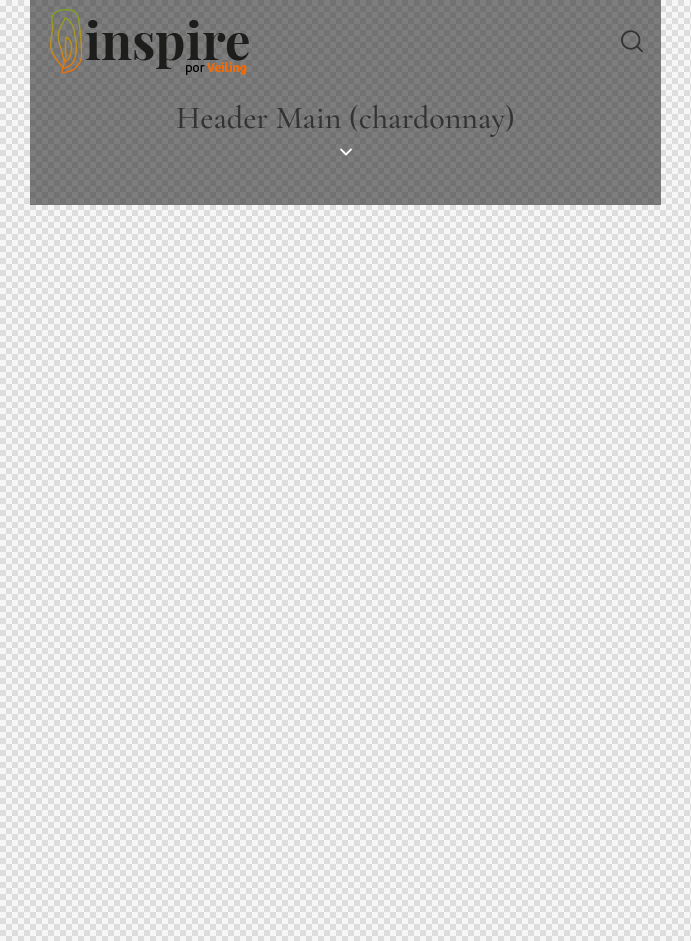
<svg xmlns="http://www.w3.org/2000/svg" width="691" height="941" viewBox="0 0 691 941">
  <rect width="100%" height="100%" fill="#fff"/>
  <image x="0" y="0" width="691" height="941" href="img/1.png"/>
  <path d="M30 0h631v205H30z" fill="#1a1a1a8c"/>
  <image x="50" y="9" width="199" height="66" href="img/2.png"/>
  <image x="621" y="30" width="22" height="23" href="img/3.png"/>
  <image x="340" y="148" width="12" height="8" href="img/4.png"/>
  <text x="176" y="128" font-family="Cormorant Garamond" font-size="32" font-weight="500" fill="#333">Header Main (chardonnay)</text>
</svg>
